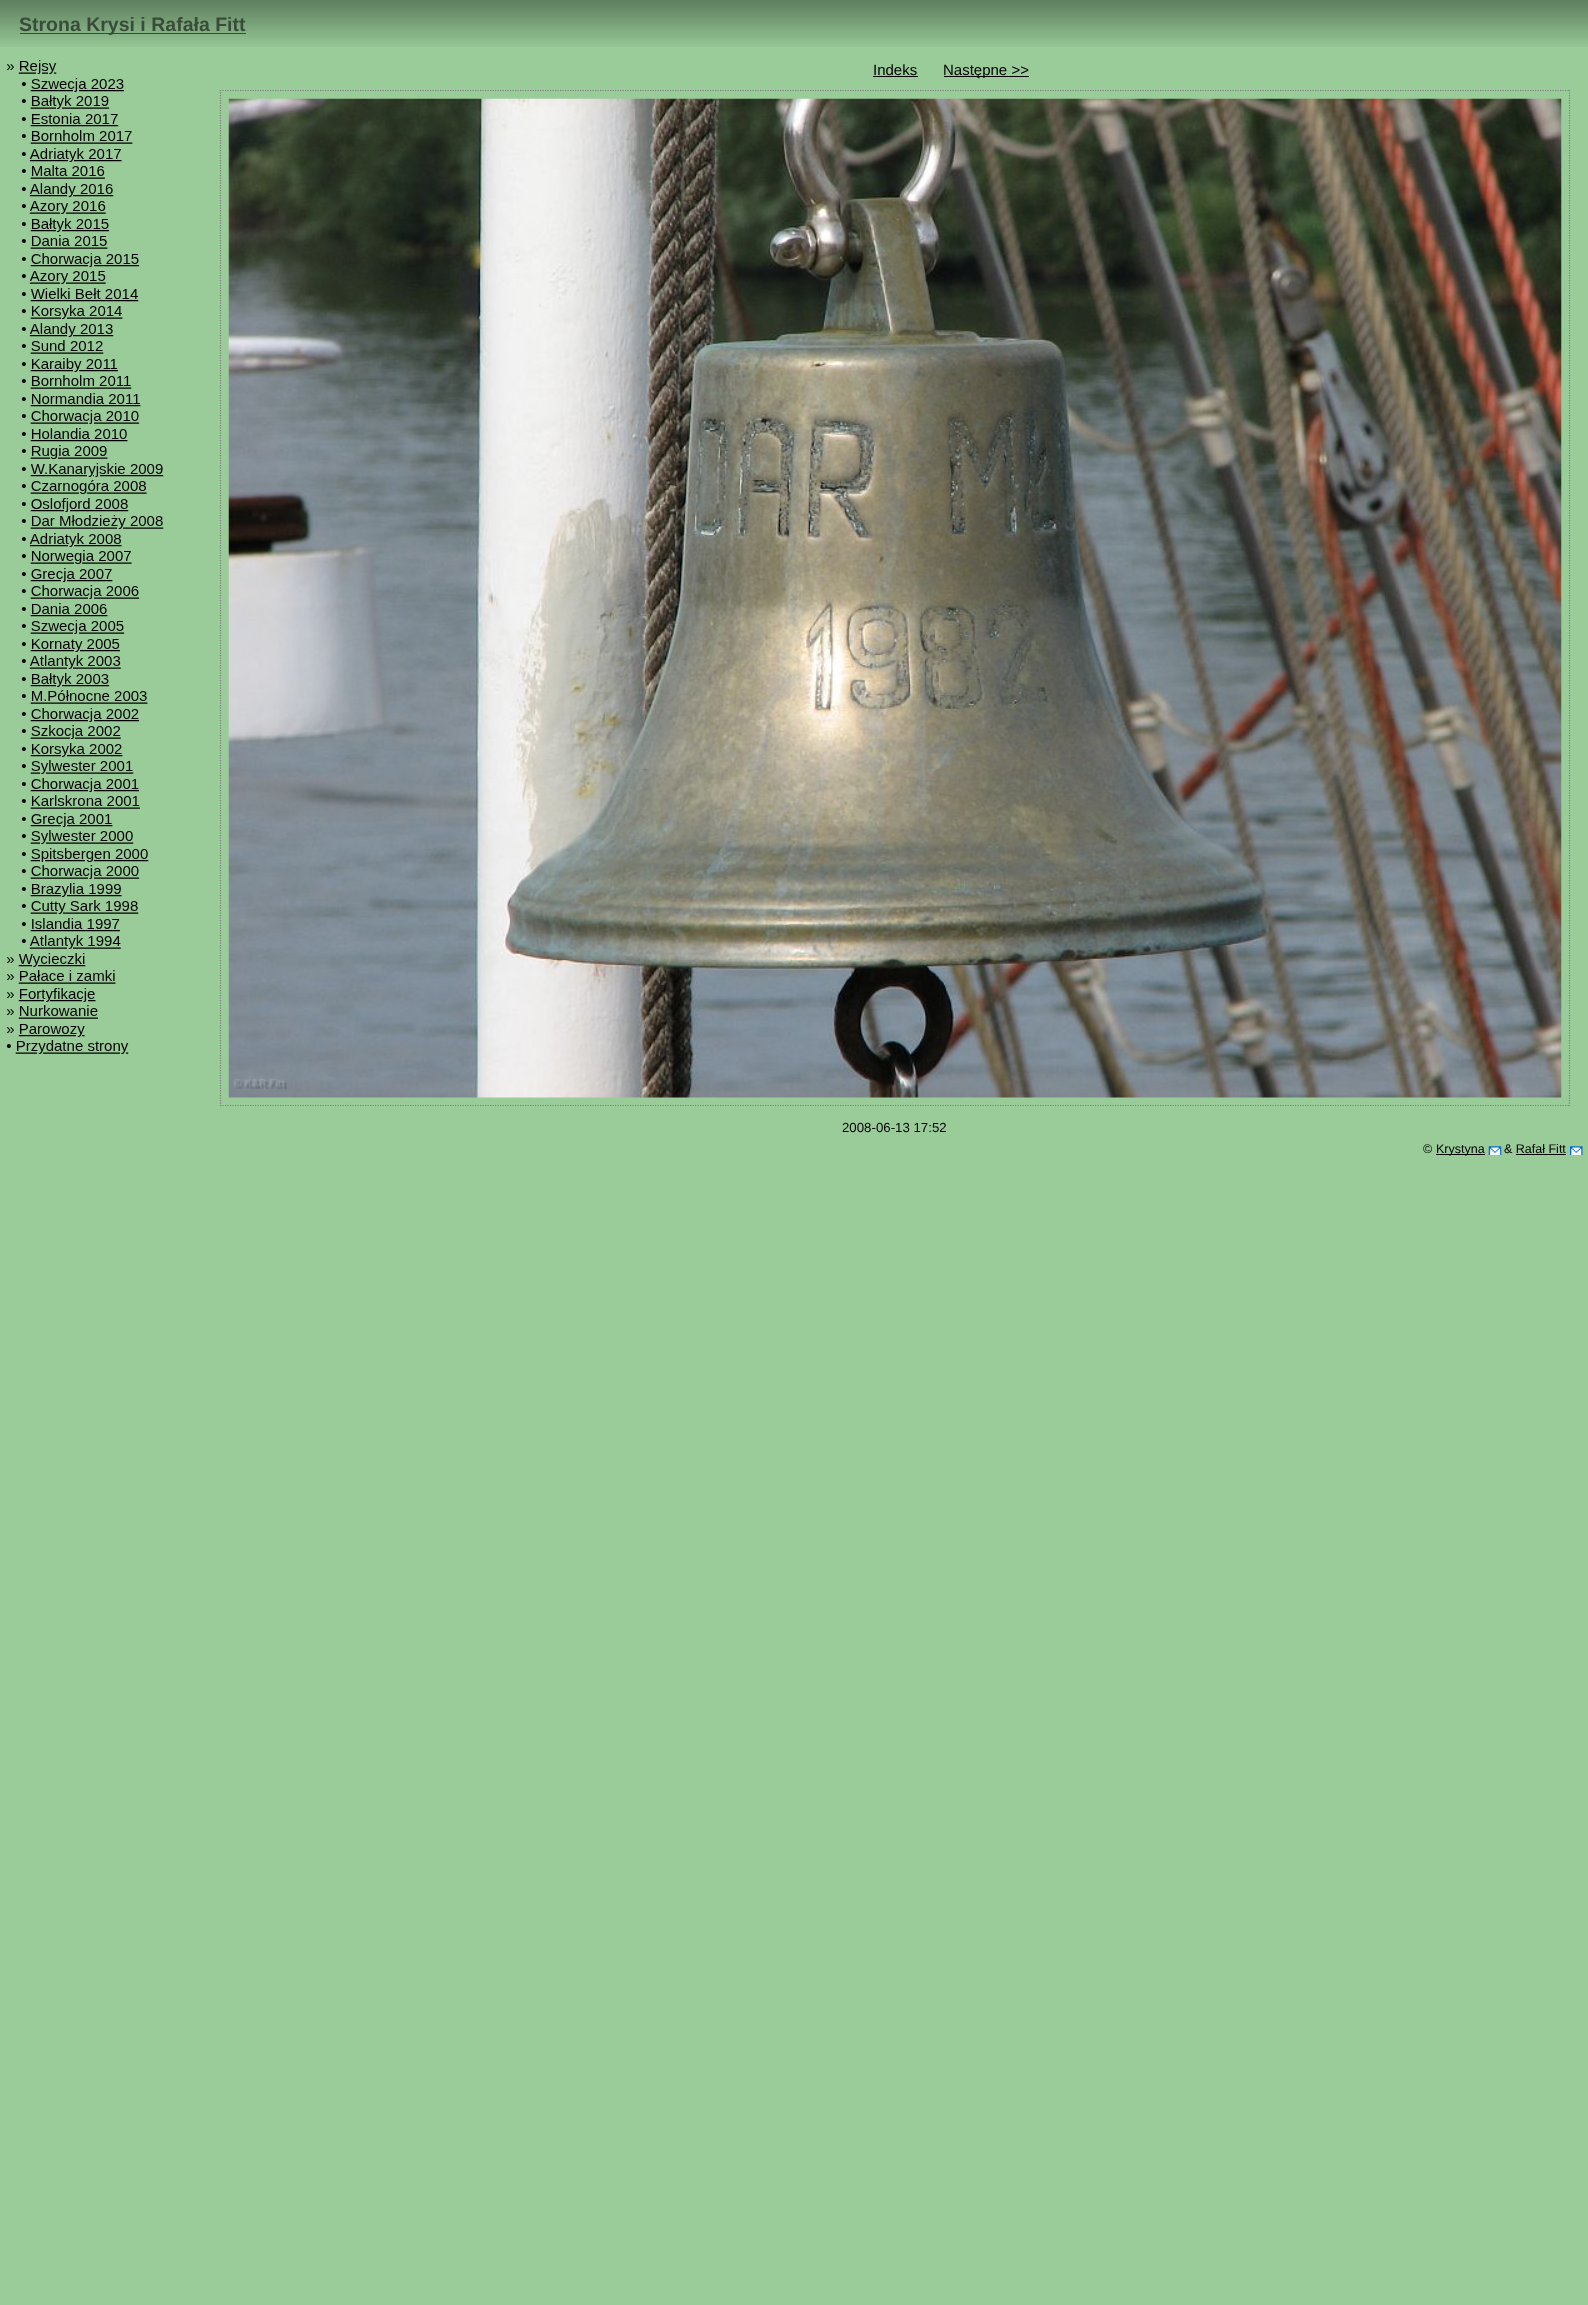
<svg xmlns="http://www.w3.org/2000/svg" width="1588" height="2305" viewBox="0 0 1588 2305">
  <rect width="100%" height="100%" fill="#9c9"/>
  <image x="0" y="0" width="1588" height="47" href="img/1.png"/>
  <path d="M20 33h226v1H20z" fill="#394c39"/>
  <image x="6" y="60" width="158" height="994" href="img/2.png"/>
  <path d="M873 76h45v1H873z" fill="#000"/>
  <path d="M944 76h85v1H944z" fill="#000"/>
  <path d="M220 90.5H1570" fill="none" stroke="#808080" stroke-width="1.2" stroke-dasharray="1.25 1.25"/>
  <path d="M1569.5 90V1106" fill="none" stroke="#808080" stroke-width="1.2" stroke-dasharray="1.25 1.25"/>
  <path d="M220 1105.5H1570" fill="none" stroke="#808080" stroke-width="1.2" stroke-dasharray="1.25 1.25"/>
  <path d="M220.5 90V1106" fill="none" stroke="#808080" stroke-width="1.2" stroke-dasharray="1.25 1.25"/>
  <image x="228" y="98" width="1334" height="1000" href="img/3.png"/>
  <path d="M1436 1154h49v1H1436z" fill="#000"/>
  <image x="1488" y="1146" width="14" height="9" href="img/4.png"/>
  <image x="1570" y="1146" width="13" height="9" href="img/5.png"/>
  <path d="M1516 1154h50v1H1516z" fill="#000"/>
  <text x="19" y="31" font-family="Liberation Sans" font-size="19.5" font-weight="bold" fill="#394c39">Strona Krysi i Rafała Fitt</text>
  <g font-family="Liberation Sans" font-size="15" fill="#000">
    <text x="873" y="75">Indeks</text>
    <text x="943" y="75">Następne &gt;&gt;</text>
  </g>
  <text x="842" y="1132" font-family="Liberation Sans" font-size="13.25" fill="#000">2008-06-13 17:52</text>
  <g font-family="Liberation Sans" font-size="12.5" fill="#000">
    <text x="1423" y="1153">©</text>
    <text x="1436" y="1153">Krystyna</text>
    <text x="1504" y="1153">&amp; Rafał Fitt</text>
  </g>
</svg>
